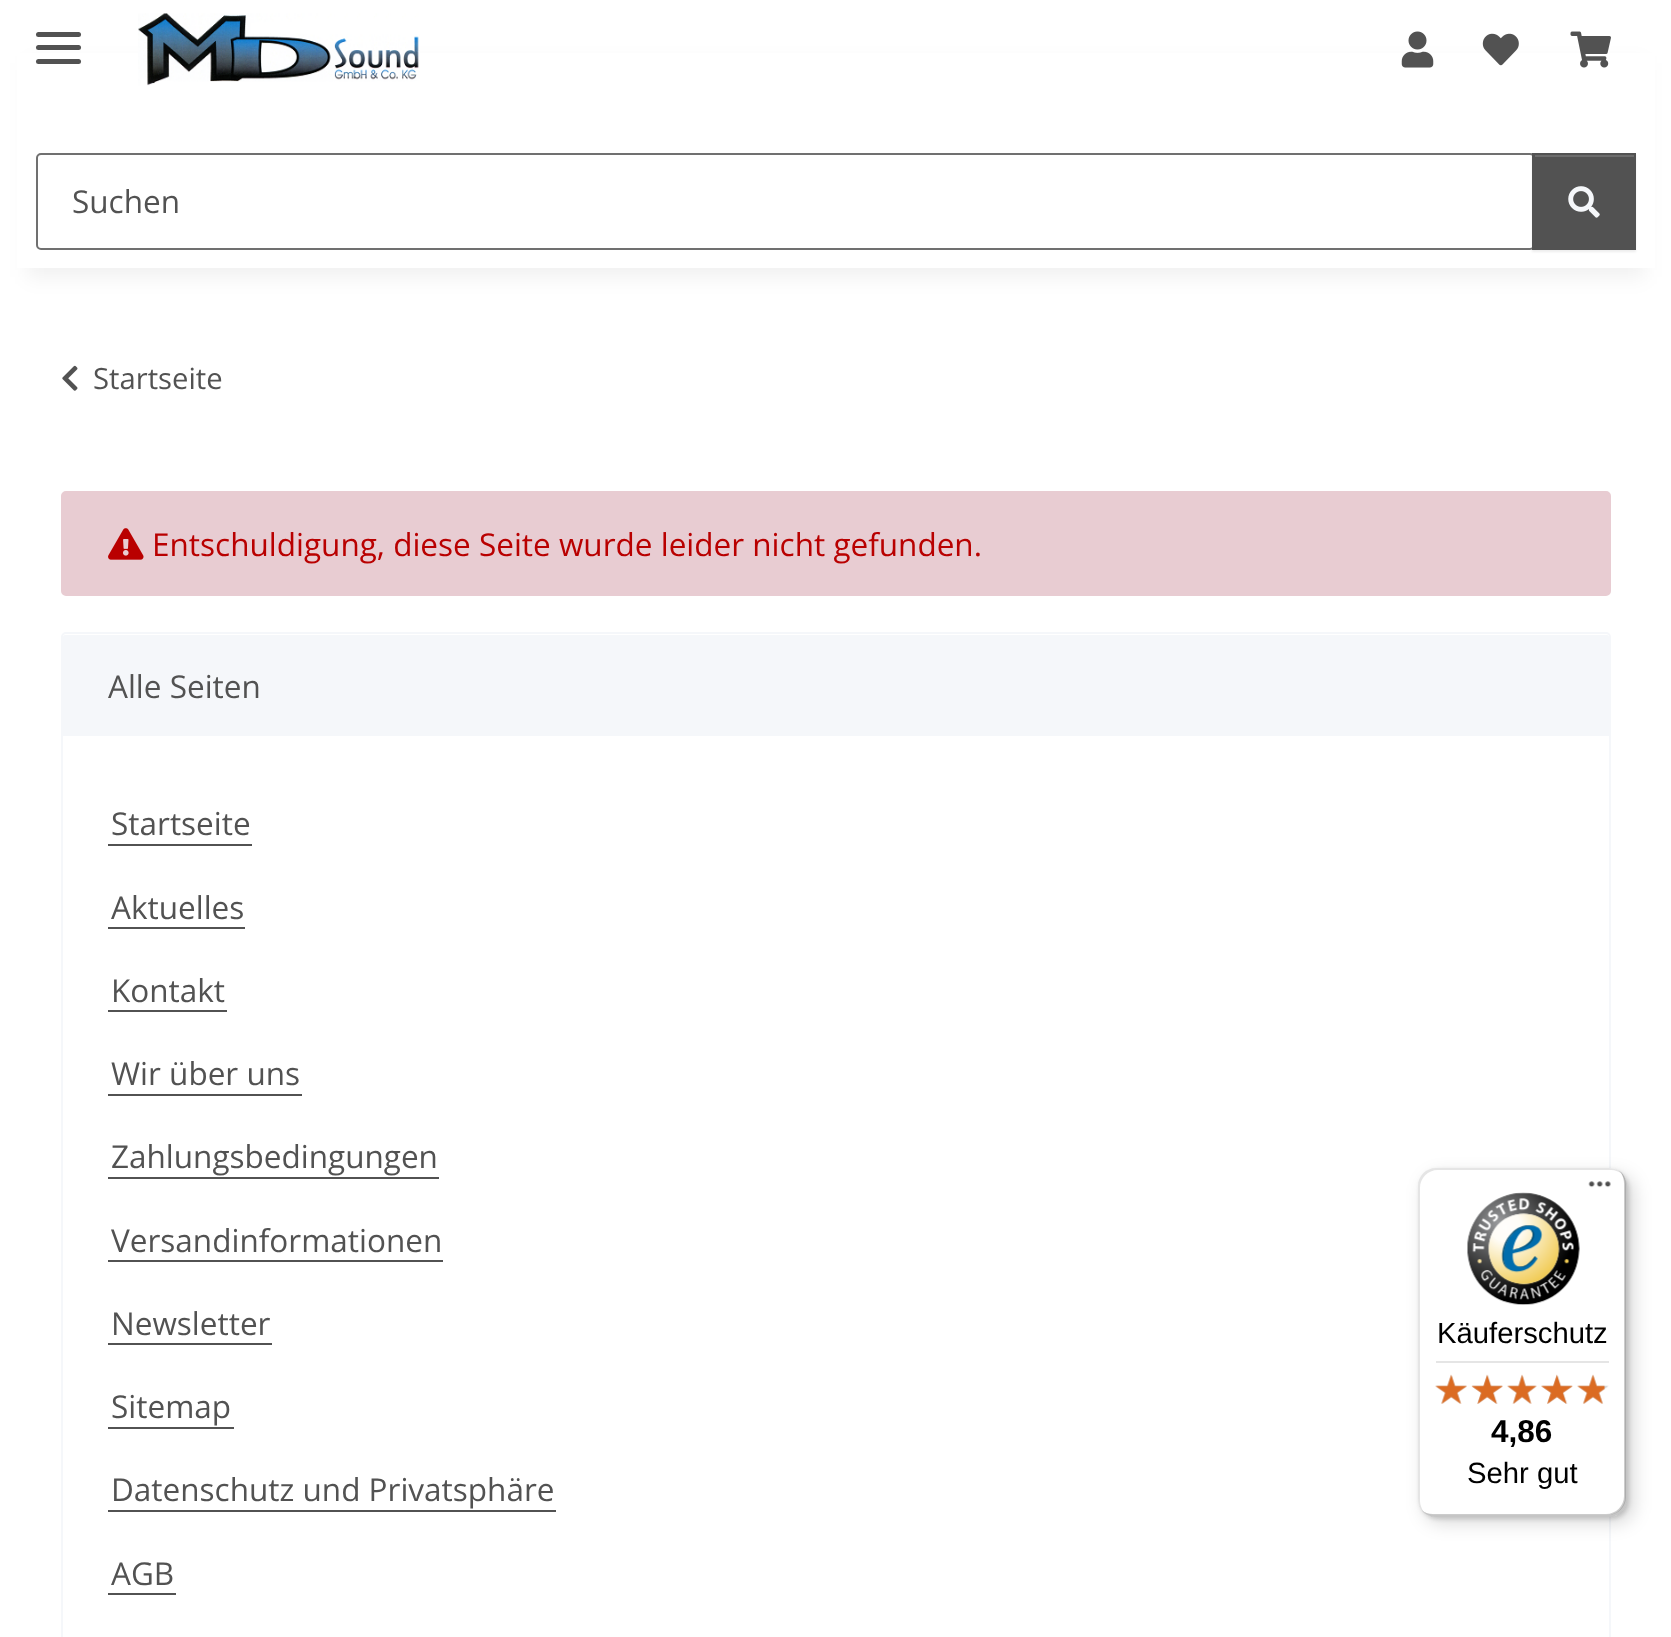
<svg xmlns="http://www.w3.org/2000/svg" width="1671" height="1637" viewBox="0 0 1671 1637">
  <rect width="100%" height="100%" fill="#fff"/>
  <path d="M27 63h1618v214H27z" fill="#0000000f" filter="blur(10px)"/>
  <path d="M17 53h1638v215H17z" fill="#fff"/>
  <rect x="36" y="45" width="45" height="5" rx="2.5" fill="#525252"/>
  <rect x="36" y="32" width="45" height="5" rx="2.5" fill="#525252"/>
  <rect x="36" y="59" width="45" height="5" rx="2.5" fill="#525252"/>
  <image x="138" y="13" width="282" height="73" href="img/1.png"/>
  <image x="1401" y="31" width="33" height="37" href="img/2.png"/>
  <image x="1482" y="33" width="37" height="33" href="img/3.png"/>
  <image x="1570" y="31" width="41" height="37" href="img/4.png"/>
  <rect x="37" y="154" width="1497" height="95" rx="4" fill="none" stroke="#707070" stroke-width="2"/>
  <path d="M1532 155h104v97H1532z" fill="#00000012" filter="blur(1px)"/>
  <path d="M1532 153h104v97H1532z" fill="#525252"/>
  <path d="M1535 155h99v2H1535z" fill="#6c6c6c"/>
  <image x="1568" y="186" width="32" height="32" href="img/5.png"/>
  <image x="62" y="365" width="16" height="26" href="img/6.png"/>
  <rect x="62" y="492" width="1548" height="103" rx="4" fill="#e8ccd2" stroke="#e8ccd2" stroke-width="2"/>
  <image x="108" y="528" width="36" height="32" href="img/7.png"/>
  <rect x="62" y="633" width="1548" height="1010" rx="4" fill="none" stroke="#f5f7fa" stroke-width="2"/>
  <path d="M65 635H1607C1608 635 1609 636 1609 637V736H63V637C63 636 64 635 65 635Z" fill="#f5f7fa"/>
  <path d="M108 844h144v2H108z" fill="#525252"/>
  <path d="M108 927h137v2H108z" fill="#525252"/>
  <path d="M108 1010h119v2H108z" fill="#525252"/>
  <path d="M108 1094h194v2H108z" fill="#525252"/>
  <path d="M108 1177h331v2H108z" fill="#525252"/>
  <path d="M108 1260h335v2H108z" fill="#525252"/>
  <path d="M108 1343h164v2H108z" fill="#525252"/>
  <path d="M108 1427h126v2H108z" fill="#525252"/>
  <path d="M108 1510h448v2H108z" fill="#525252"/>
  <path d="M108 1593h68v2H108z" fill="#525252"/>
  <rect x="1424" y="1175" width="210" height="348" rx="18" fill="#00000026" filter="blur(9px)"/>
  <rect x="1420" y="1170" width="209" height="349" rx="18" fill="#00000026" filter="blur(2px)"/>
  <rect x="1418" y="1168" width="209" height="349" rx="18" fill="#fff"/>
  <path d="M1438 1170H1611C1615 1170 1619 1172 1623 1174C1619 1170 1614 1168 1609 1168H1436C1426 1168 1418 1176 1418 1186V1499C1418 1504 1420 1509 1424 1513C1422 1509 1420 1505 1420 1501V1188C1420 1178 1428 1170 1438 1170Z" fill="#0000001a"/>
  <path d="M1422 1510C1425 1514 1430 1517 1436 1517H1609C1619 1517 1627 1509 1627 1499V1186C1627 1179 1623 1173 1618 1170C1622 1173 1624 1178 1624 1184V1496C1624 1506 1616 1514 1606 1514H1433C1429 1514 1425 1513 1422 1510Z" fill="#00000033"/>
  <path d="M1422 1511C1426 1515 1431 1517 1436 1517H1609C1619 1517 1627 1509 1627 1499V1186C1627 1181 1625 1176 1621 1172C1623 1176 1625 1180 1625 1184V1497C1625 1507 1617 1515 1607 1515H1434C1430 1515 1426 1513 1422 1511Z" fill="#32323233"/>
  <path d="M1422 1511C1426 1515 1431 1517 1436 1517H1609C1619 1517 1627 1509 1627 1499V1186C1627 1181 1625 1176 1622 1173C1624 1176 1626 1180 1626 1185V1497C1626 1507 1618 1515 1608 1515H1434C1430 1515 1426 1513 1422 1511Z" fill="#ffffff4d"/>
  <image x="1588" y="1181" width="23" height="7" href="img/8.png"/>
  <image x="1467" y="1192" width="113" height="113" href="img/9.png"/>
  <path d="M1436 1361h173v2H1436z" fill="#e5e5e5"/>
  <image x="1435" y="1375" width="32" height="29" href="img/15.png"/>
  <image x="1435" y="1374" width="32" height="30" href="img/10.png"/>
  <image x="1472" y="1375" width="31" height="29" href="img/16.png"/>
  <image x="1471" y="1374" width="32" height="30" href="img/11.png"/>
  <image x="1507" y="1375" width="30" height="29" href="img/17.png"/>
  <image x="1507" y="1374" width="30" height="30" href="img/12.png"/>
  <image x="1541" y="1375" width="32" height="29" href="img/18.png"/>
  <image x="1541" y="1374" width="32" height="30" href="img/13.png"/>
  <image x="1577" y="1375" width="32" height="29" href="img/19.png"/>
  <image x="1577" y="1374" width="28" height="30" href="img/14.png"/>
  <text x="72" y="213" font-family="Open Sans" font-size="31.5" fill="#525252">Suchen</text>
  <text x="93" y="389" font-family="Open Sans" font-size="29.25" fill="#525252">Startseite</text>
  <text x="152" y="556" font-family="Open Sans" font-size="31.5" fill="#b90000">Entschuldigung, diese Seite wurde leider nicht gefunden.</text>
  <g font-family="Open Sans" font-size="31.5" fill="#525252">
    <text x="108" y="698">Alle Seiten</text>
    <text x="111" y="835">Startseite</text>
    <text x="111" y="919">Aktuelles</text>
    <text x="111" y="1002">Kontakt</text>
    <text x="111" y="1085">Wir über uns</text>
    <text x="111" y="1168">Zahlungsbedingungen</text>
    <text x="111" y="1252">Versandinformationen</text>
    <text x="111" y="1335">Newsletter</text>
    <text x="111" y="1418">Sitemap</text>
    <text x="111" y="1501">Datenschutz und Privatsphäre</text>
    <text x="111" y="1585">AGB</text>
  </g>
  <text x="1437" y="1343" font-family="Liberation Sans" font-size="29.25" fill="#000">Käuferschutz</text>
  <text x="1491" y="1442" font-family="Liberation Sans" font-size="31.5" font-weight="bold" fill="#000">4,86</text>
  <text x="1467" y="1483" font-family="Liberation Sans" font-size="29.25" fill="#000">Sehr gut</text>
</svg>
